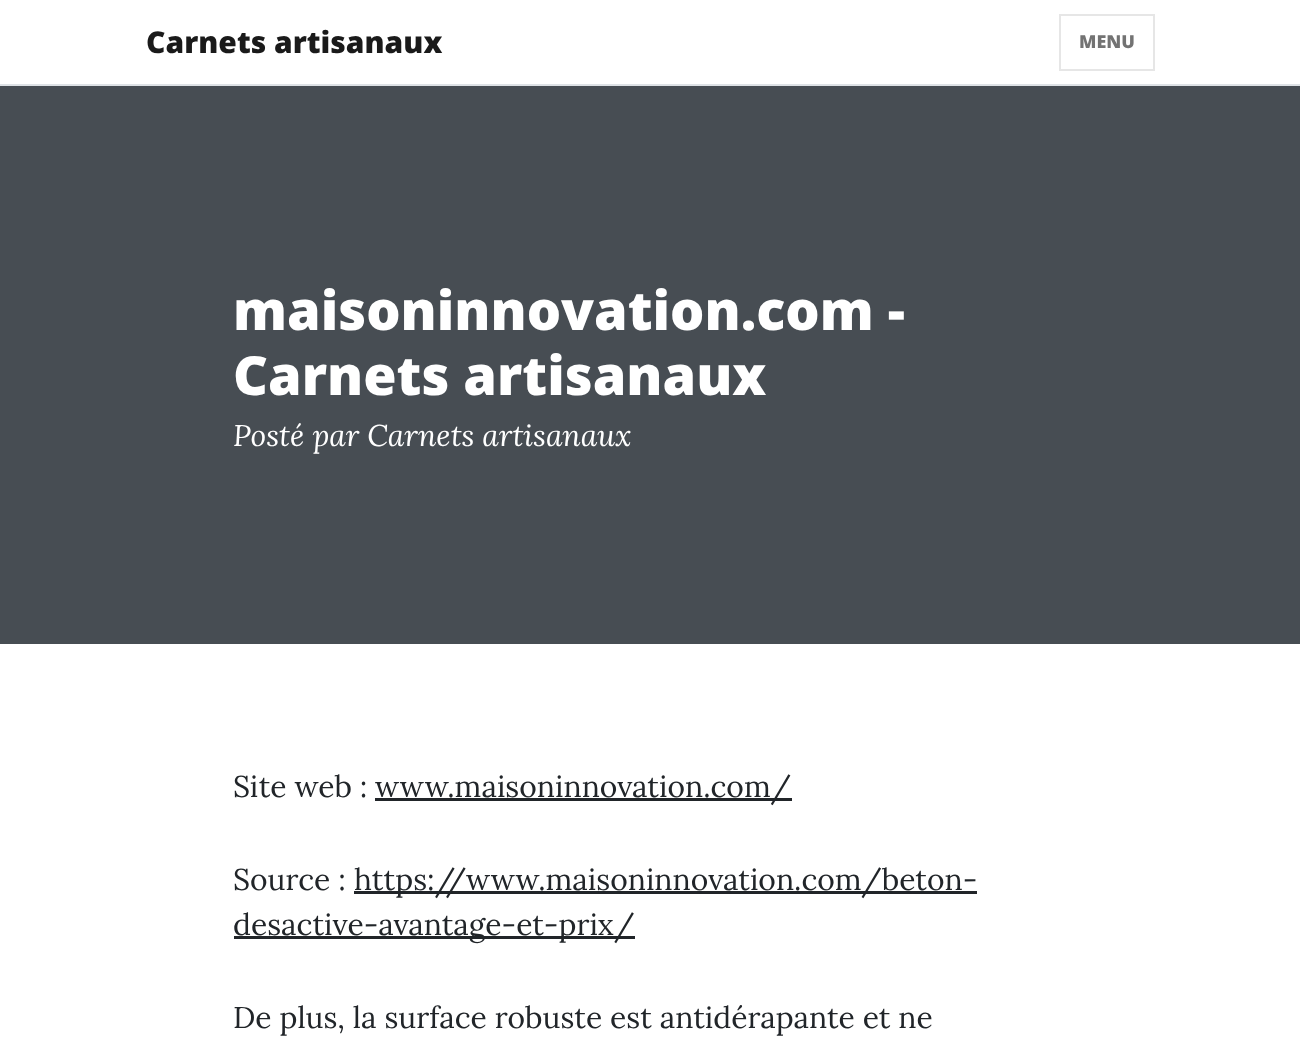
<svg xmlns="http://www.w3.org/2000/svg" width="1300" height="1042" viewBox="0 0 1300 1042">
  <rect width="100%" height="100%" fill="#fff"/>
  <path d="M0 84h1300v2H0z" fill="#dee2e6"/>
  <path d="M1060 15h94v55H1060z" fill="none" stroke="#e6e6e6" stroke-width="2"/>
  <path d="M0 86h1300v558H0z" fill="#474d53"/>
  <path d="M375 798h417v3H375z" fill="#212529"/>
  <path d="M354 891h623v3H354z" fill="#212529"/>
  <path d="M234 936h401v3H234z" fill="#212529"/>
  <text x="146" y="53" font-family="Open Sans" font-size="30" font-weight="800" fill="#1a1a1a">Carnets artisanaux</text>
  <text x="1079" y="48" font-family="Open Sans" font-size="18" font-weight="800" fill="#737373">MENU</text>
  <g font-family="Open Sans" font-size="54" font-weight="800" fill="#fff">
    <text x="233" y="330">maisoninnovation.com -</text>
    <text x="233" y="395">Carnets artisanaux</text>
  </g>
  <text x="233" y="446" font-family="Lora" font-size="30" font-style="italic" fill="#fff">Posté par Carnets artisanaux</text>
  <g font-family="Lora" font-size="30" fill="#212529">
    <text x="233" y="797">Site web :</text>
    <text x="375" y="797">www.maisoninnovation.com/</text>
    <text x="233" y="890">Source :</text>
    <text x="354" y="890">https://www.maisoninnovation.com/beton-</text>
    <text x="233" y="935">desactive-avantage-et-prix/</text>
    <text x="233" y="1028">De plus, la surface robuste est antidérapante et ne</text>
  </g>
</svg>
